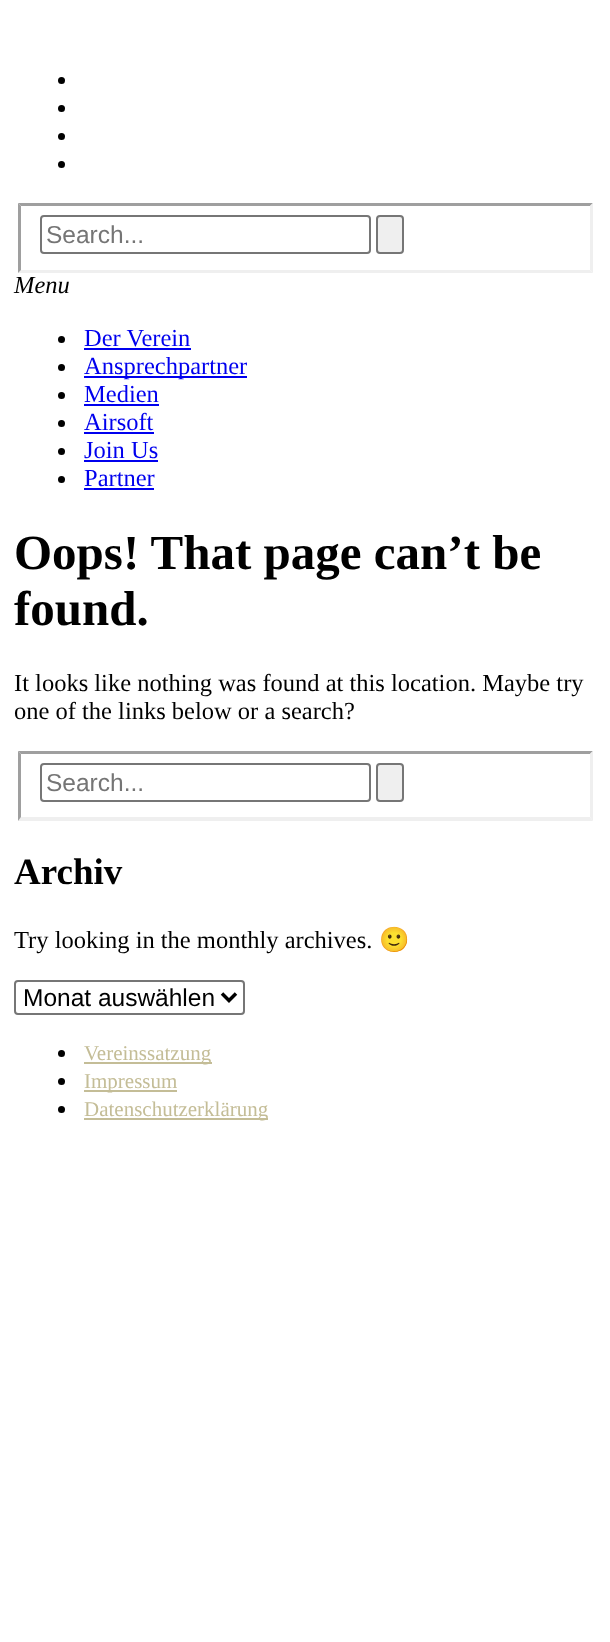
<svg xmlns="http://www.w3.org/2000/svg" width="610" height="1642" viewBox="0 0 610 1642">
  <rect width="100%" height="100%" fill="#fff"/>
  <circle cx="61.5" cy="80.5" r="3.5" fill="#000"/>
  <circle cx="61.5" cy="108.5" r="3.5" fill="#000"/>
  <circle cx="61.5" cy="136.5" r="3.5" fill="#000"/>
  <circle cx="61.5" cy="164.5" r="3.5" fill="#000"/>
  <path d="M18 203H593L590 206H21Z" fill="#9f9f9f"/>
  <path d="M593 203V273L590 270V206Z" fill="#efefef"/>
  <path d="M593 273H18L21 270H590Z" fill="#efefef"/>
  <path d="M18 273V203L21 206V270Z" fill="#9f9f9f"/>
  <rect x="41" y="216" width="329" height="37" rx="3" fill="none" stroke="#767676" stroke-width="2"/>
  <rect x="377" y="216" width="26" height="37" rx="3" fill="#efefef" stroke="#767676" stroke-width="2"/>
  <circle cx="61.5" cy="339.5" r="3.5" fill="#000"/>
  <path d="M84 348h107v2H84z" fill="#00e"/>
  <circle cx="61.5" cy="367.5" r="3.5" fill="#000"/>
  <path d="M84 376h163v2H84z" fill="#00e"/>
  <circle cx="61.5" cy="395.5" r="3.5" fill="#000"/>
  <path d="M84 404h75v2H84z" fill="#00e"/>
  <circle cx="61.5" cy="423.5" r="3.5" fill="#000"/>
  <path d="M84 432h70v2H84z" fill="#00e"/>
  <circle cx="61.5" cy="451.5" r="3.5" fill="#000"/>
  <path d="M84 460h74v2H84z" fill="#00e"/>
  <circle cx="61.5" cy="479.5" r="3.5" fill="#000"/>
  <path d="M84 488h70v2H84z" fill="#00e"/>
  <path d="M18 751H593L590 754H21Z" fill="#9f9f9f"/>
  <path d="M593 751V821L590 817V754Z" fill="#efefef"/>
  <path d="M593 821H18L21 817H590Z" fill="#efefef"/>
  <path d="M18 821V751L21 754V817Z" fill="#9f9f9f"/>
  <rect x="41" y="764" width="329" height="37" rx="3" fill="none" stroke="#767676" stroke-width="2"/>
  <rect x="377" y="764" width="26" height="37" rx="3" fill="#efefef" stroke="#767676" stroke-width="2"/>
  <rect x="15" y="981" width="229" height="33" rx="3" fill="none" stroke="#767676" stroke-width="2"/>
  <path d="M222 993.5L229 1000.5L236 993.5" fill="none" stroke="#000" stroke-width="3.5"/>
  <circle cx="61.5" cy="1053.5" r="3.5" fill="#000"/>
  <path d="M84 1062h128v2H84z" fill="#c4bd97"/>
  <circle cx="61.5" cy="1081.5" r="3.5" fill="#000"/>
  <path d="M84 1090h93v2H84z" fill="#c4bd97"/>
  <circle cx="61.5" cy="1109.5" r="3.5" fill="#000"/>
  <path d="M84 1118h184v2H84z" fill="#c4bd97"/>
  <text x="46" y="243" font-family="Liberation Sans" font-size="24.5" fill="#757575">Search...</text>
  <text x="14" y="293" font-family="Liberation Serif" font-size="24.5" font-style="italic" fill="#000">Menu</text>
  <g font-family="Liberation Serif" font-size="24.5" fill="#00e">
    <text x="84" y="346">Der Verein</text>
    <text x="84" y="374">Ansprechpartner</text>
    <text x="84" y="402">Medien</text>
    <text x="84" y="430">Airsoft</text>
    <text x="84" y="458">Join Us</text>
    <text x="84" y="486">Partner</text>
  </g>
  <g font-family="Liberation Serif" font-size="49" font-weight="bold" fill="#000">
    <text x="14" y="569">Oops! That page can’t be</text>
    <text x="14" y="625">found.</text>
  </g>
  <g font-family="Liberation Serif" font-size="24.5" fill="#000">
    <text x="14" y="691">It looks like nothing was found at this location. Maybe try</text>
    <text x="14" y="719">one of the links below or a search?</text>
  </g>
  <text x="46" y="791" font-family="Liberation Sans" font-size="24.5" fill="#757575">Search...</text>
  <text x="14" y="884" font-family="Liberation Serif" font-size="37" font-weight="bold" fill="#000">Archiv</text>
  <text x="14" y="948" font-family="Liberation Serif" font-size="24.5" fill="#000">Try looking in the monthly archives.</text>
  <text x="379" y="948" font-family="Noto Color Emoji" font-size="24.5" fill="#000">🙂</text>
  <text x="23" y="1006" font-family="Liberation Sans" font-size="24.5" fill="#000">Monat auswählen</text>
  <g font-family="Liberation Serif" font-size="21" fill="#c4bd97">
    <text x="84" y="1060">Vereinssatzung</text>
    <text x="84" y="1088">Impressum</text>
    <text x="84" y="1116">Datenschutzerklärung</text>
  </g>
</svg>
